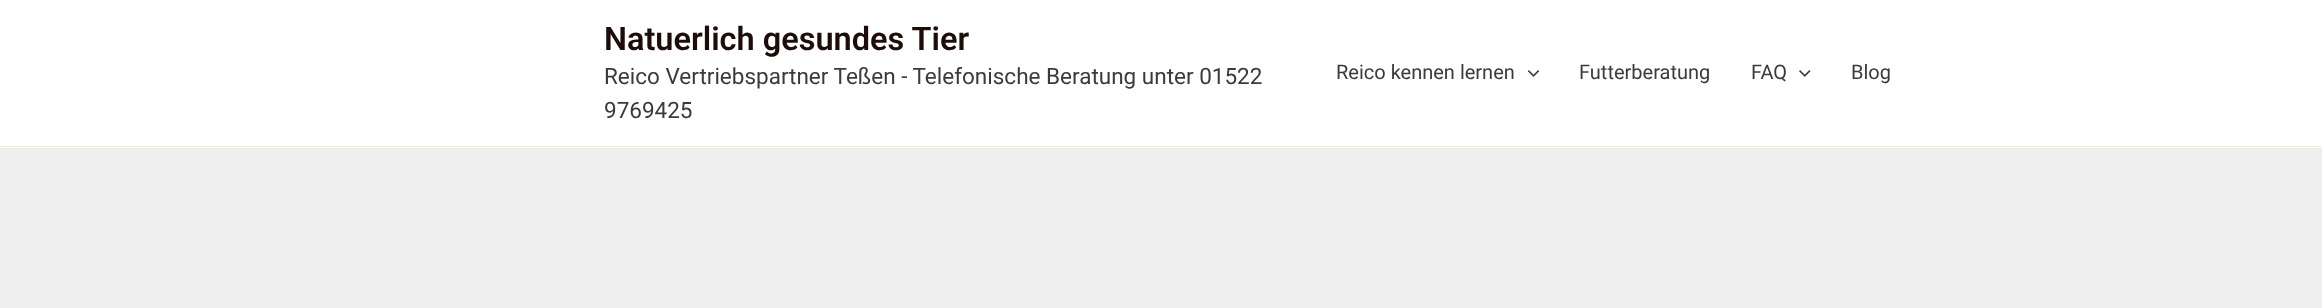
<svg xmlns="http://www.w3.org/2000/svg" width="2322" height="308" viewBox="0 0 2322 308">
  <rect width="100%" height="100%" fill="#eee"/>
  <path d="M0 0h2322v148H0z" fill="#fff"/>
  <path d="M0 146h2322v1H0z" fill="#f0f3dc"/>
  <image x="1528" y="70" width="12" height="7" href="img/1.png"/>
  <image x="1799" y="70" width="12" height="7" href="img/2.png"/>
  <text x="604" y="50" font-family="Roboto" font-size="32.5" font-weight="600" fill="#1c0d0a">Natuerlich gesundes Tier</text>
  <g font-family="Roboto" font-size="22.5" fill="#3a3b3b">
    <text x="604" y="84">Reico Vertriebspartner Teßen - Telefonische Beratung unter 01522</text>
    <text x="604" y="118">9769425</text>
  </g>
  <g font-family="Roboto" font-size="20" fill="#3a3b3b">
    <text x="1336" y="79">Reico kennen lernen</text>
    <text x="1579" y="79">Futterberatung</text>
    <text x="1751" y="79">FAQ</text>
    <text x="1851" y="79">Blog</text>
  </g>
</svg>
